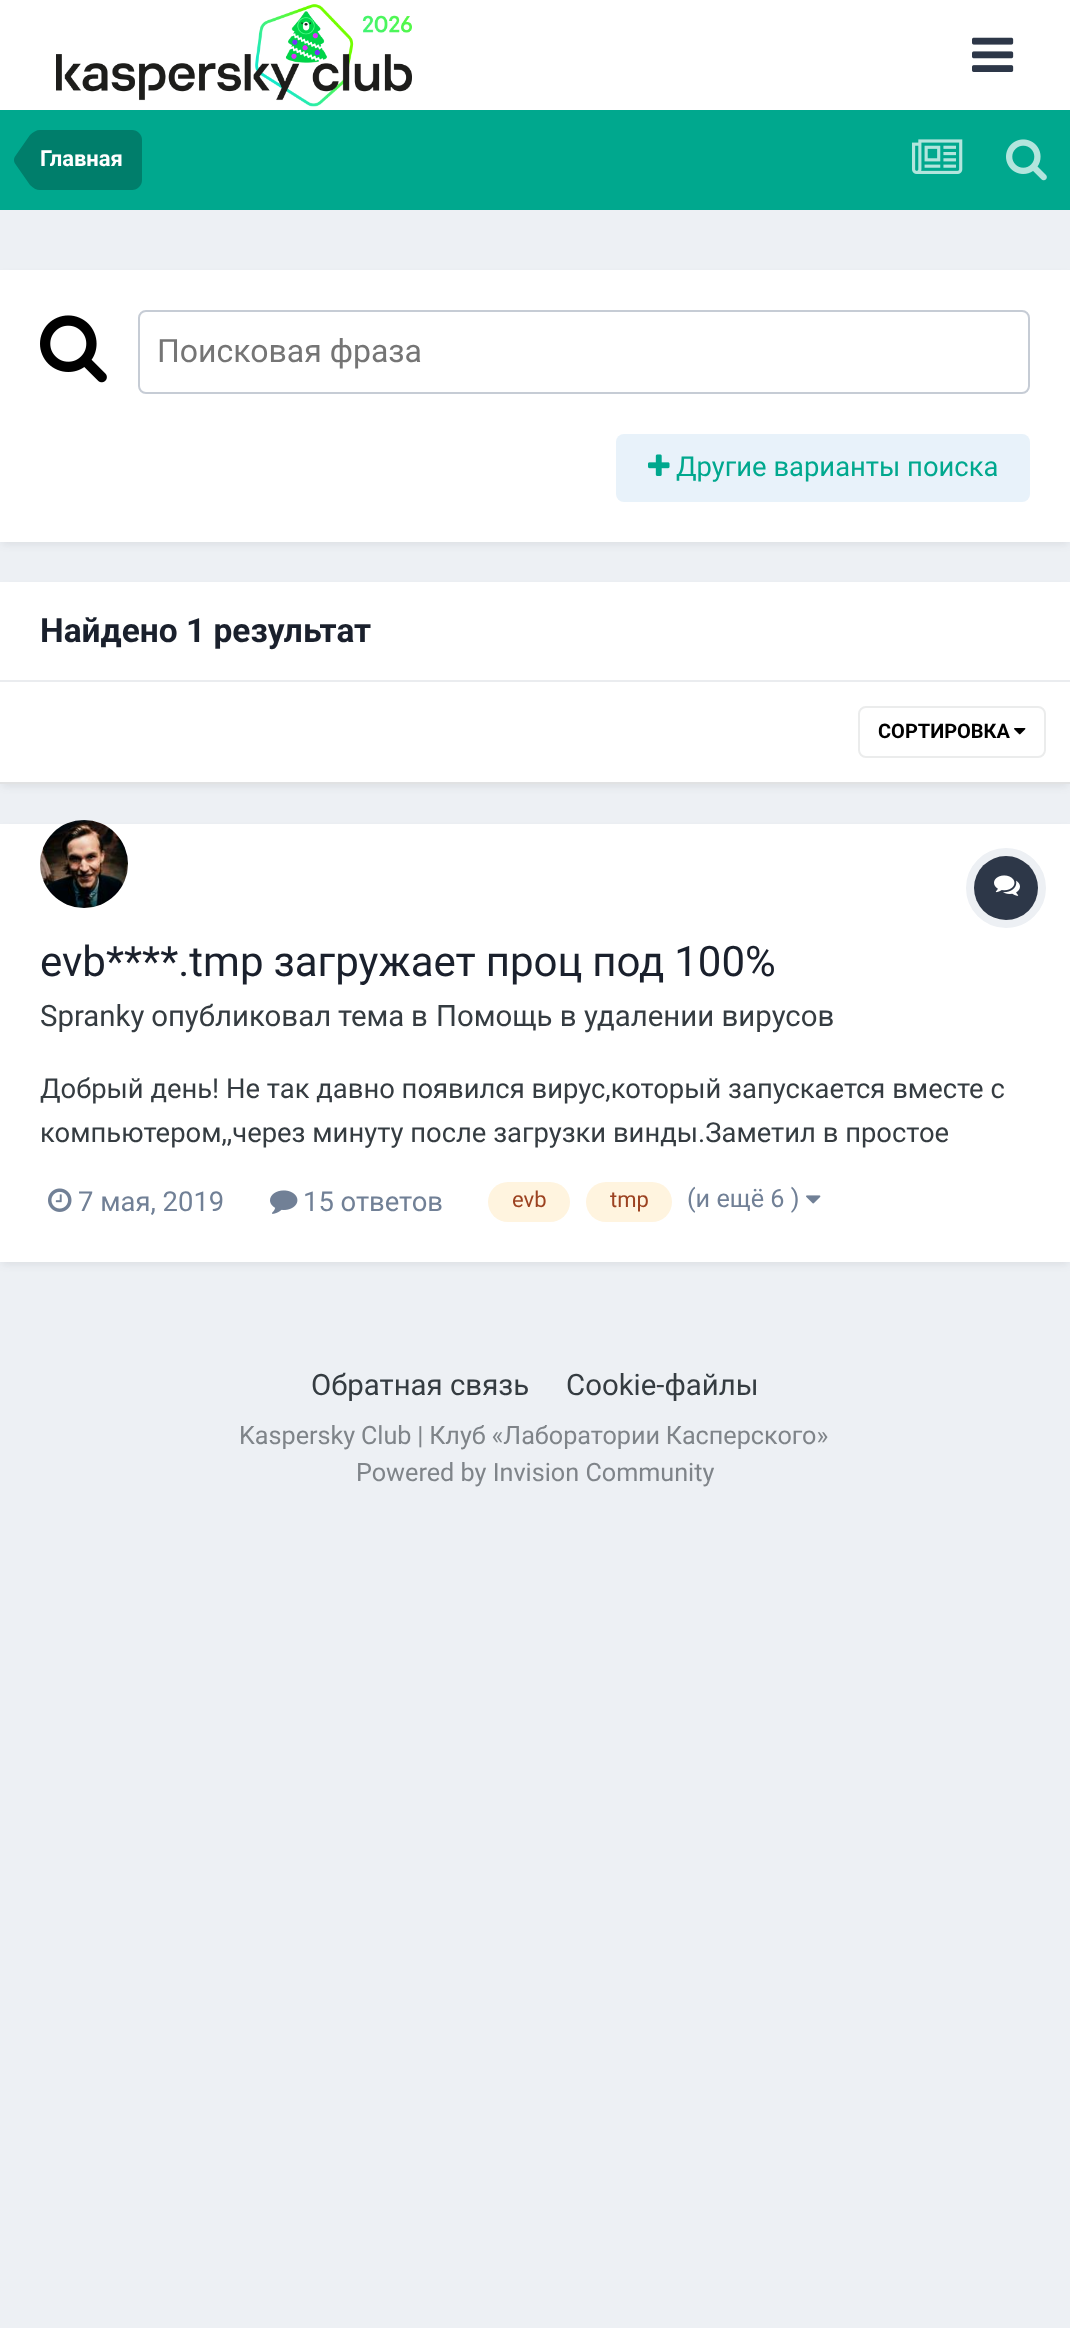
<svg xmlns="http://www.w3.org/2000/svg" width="1070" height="2328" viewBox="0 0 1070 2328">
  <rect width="100%" height="100%" fill="#edf0f4"/>
  <path d="M0 0h1070v110H0z" fill="#fff"/>
  <image x="56" y="4" width="356" height="103" href="img/1.png"/>
  <image x="972" y="37" width="42" height="35" href="img/2.png"/>
  <path d="M0 110h1070v100H0z" fill="#00a88e"/>
  <path d="M40 130H132C137.5 130 142 134.5 142 140V180C142 185.5 137.5 190 132 190H40Z" fill="#007e6b"/>
  <path d="M40 160V190C36.5 190 33 188 30 185L15 163.5C14.5 162.5 14 161.5 14 160ZM40 160H14C14 158.5 14.5 157.5 15 156.5L30 135C33 132 36.5 130 40 130Z" fill="#007e6b"/>
  <image x="912" y="139" width="51" height="35" href="img/3.png"/>
  <image x="1006" y="139" width="41" height="42" href="img/4.png"/>
  <path d="M2 276h1066v268H2z" fill="#2d37481a" filter="blur(4px)"/>
  <path d="M0 270h1070v272H0z" fill="#fff"/>
  <image x="40" y="315" width="67" height="68" href="img/5.png"/>
  <rect x="139" y="311" width="890" height="82" rx="7" fill="none" stroke="#c6ccd5" stroke-width="2"/>
  <rect x="616" y="434" width="414" height="68" rx="8" fill="#e8f2fa"/>
  <image x="648" y="454" width="22" height="22" href="img/6.png"/>
  <path d="M2 588h1066v198H2z" fill="#2d37481a" filter="blur(4px)"/>
  <path d="M0 582h1070v200H0z" fill="#fff"/>
  <path d="M0 680h1070v2H0z" fill="#eaecef"/>
  <path d="M0 782h1070v2H0z" fill="#e1e2e3"/>
  <image x="1014" y="728" width="12" height="7" href="img/7.png"/>
  <rect x="859" y="707" width="186" height="50" rx="7" fill="none" stroke="#ebecec" stroke-width="2"/>
  <path d="M2 830h1066v434H2z" fill="#2d37481a" filter="blur(4px)"/>
  <path d="M0 824h1070v438H0z" fill="#fff"/>
  <circle cx="84" cy="864" r="44" fill="#fff"/>
  <image x="40" y="820" width="88" height="88" href="img/8.png"/>
  <circle cx="1006" cy="888" r="36" fill="none" stroke="#edf0f4" stroke-width="8"/>
  <circle cx="1006" cy="888" r="32" fill="#2d3748"/>
  <image x="994" y="875" width="26" height="21" href="img/9.png"/>
  <image x="48" y="1188" width="24" height="24" href="img/10.png"/>
  <image x="270" y="1190" width="28" height="24" href="img/11.png"/>
  <rect x="488" y="1182" width="82" height="40" rx="20" fill="#fff4df"/>
  <rect x="586" y="1182" width="86" height="40" rx="20" fill="#fff4df"/>
  <image x="806" y="1195" width="15" height="9" href="img/12.png"/>
  <text x="40" y="166" font-family="Roboto" font-size="22" font-weight="bold" fill="#fff">Главная</text>
  <text x="157" y="362" font-family="Roboto" font-size="32" fill="#757575">Поисковая фраза</text>
  <text x="676" y="476" font-family="Roboto" font-size="27.4" fill="#00a88e">Другие варианты поиска</text>
  <text x="40" y="642" font-family="Roboto" font-size="33.5" font-weight="bold" fill="#1a202c">Найдено 1 результат</text>
  <text x="878" y="738" font-family="Roboto" font-size="20" font-weight="bold" fill="#000">СОРТИРОВКА</text>
  <text x="40" y="976" word-spacing="-0.5" font-family="Roboto" font-size="42" fill="#1a202c">evb****.tmp загружает проц под 100%</text>
  <g font-family="Roboto" font-size="29.4" fill="#353c41">
    <text x="40" y="1026" word-spacing="-0.5">Spranky опубликовал тема в</text>
    <text x="436" y="1026">Помощь в удалении вирусов</text>
  </g>
  <g font-family="Roboto" font-size="27.4" fill="#353c41">
    <text x="40" y="1098">Добрый день! Не так давно появился вирус,который запускается вместе с</text>
    <text x="40" y="1142">компьютером,,через минуту после загрузки винды.Заметил в простое</text>
  </g>
  <g font-family="Roboto" font-size="27.4" fill="#718096">
    <text x="78" y="1211">7 мая, 2019</text>
    <text x="303" y="1211">15 ответов</text>
  </g>
  <g font-family="Roboto" font-size="22" fill="#9c4221">
    <text x="512" y="1207">evb</text>
    <text x="610" y="1207">tmp</text>
  </g>
  <text x="687" y="1207" font-family="Roboto" font-size="25.2" fill="#718096">(и ещё 6 )</text>
  <g font-family="Roboto" font-size="29.4" fill="#353c41">
    <text x="311" y="1395">Обратная связь</text>
    <text x="566" y="1395">Cookie-файлы</text>
  </g>
  <g font-family="Roboto" font-size="25.2" fill="#7f8489">
    <text x="239" y="1444" word-spacing="-0.5">Kaspersky Club | Клуб «Лаборатории Касперского»</text>
    <text x="356" y="1481">Powered by Invision Community</text>
  </g>
</svg>
